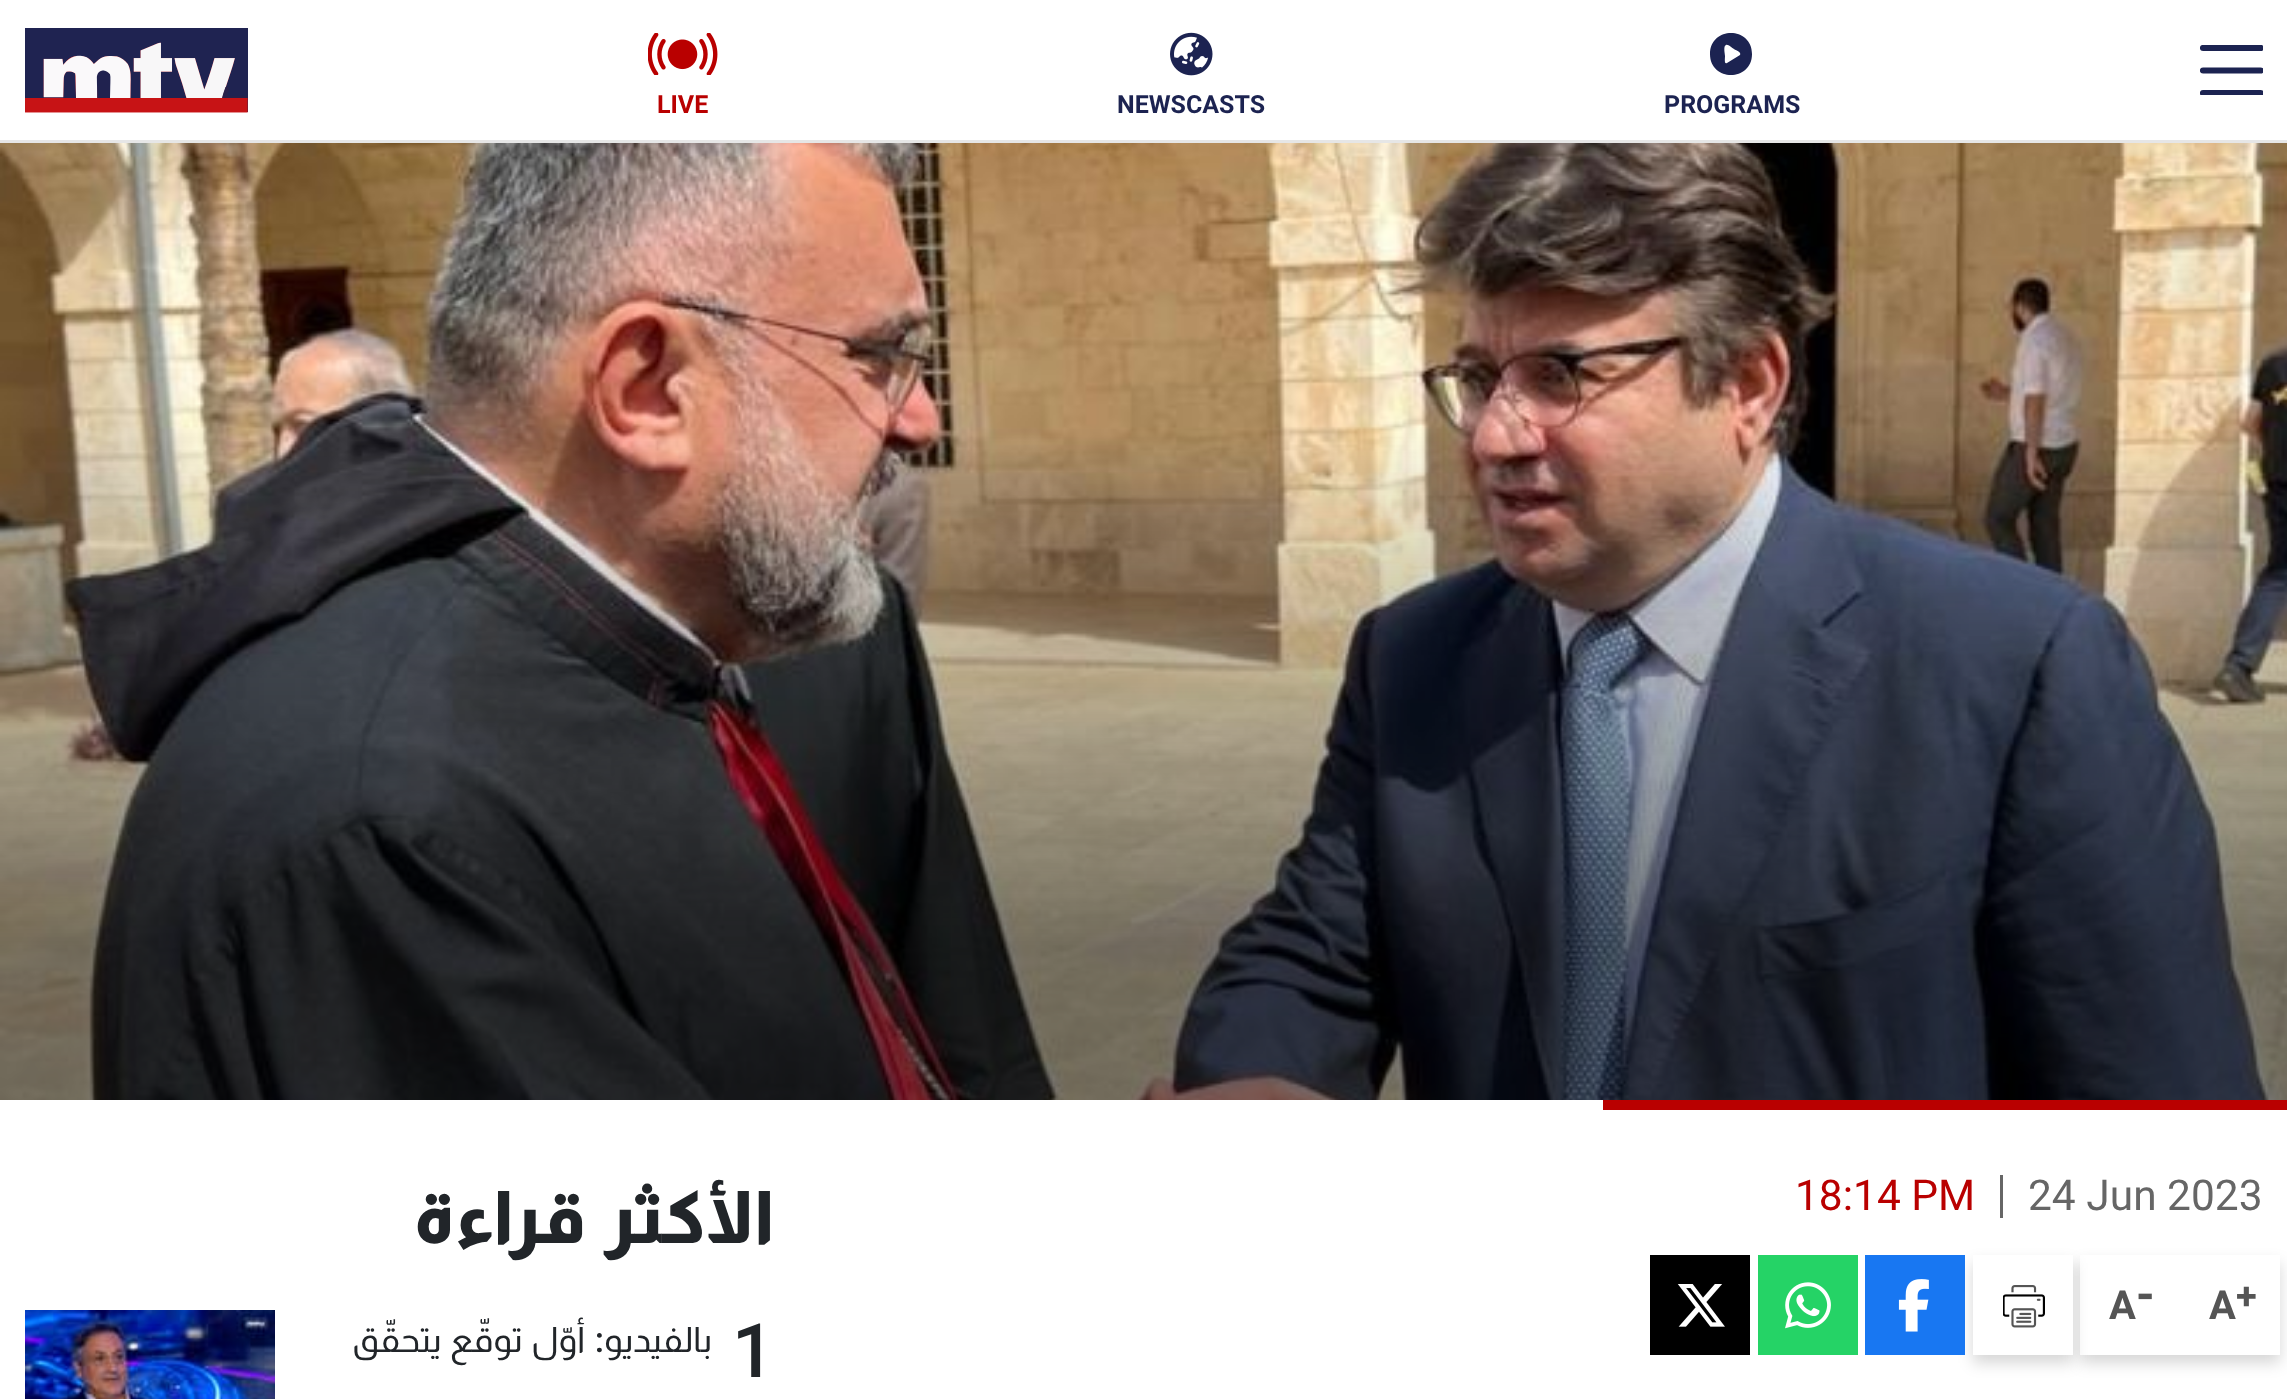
<svg xmlns="http://www.w3.org/2000/svg" width="2287" height="1399" viewBox="0 0 2287 1399">
  <defs>
    <clipPath id="clip1"><path d="M2200 45h63v50H2200z"/></clipPath>
  </defs>
  <rect width="100%" height="100%" fill="#fff"/>
  <path d="M0 140h2287v3H0z" fill="#e6e6e6"/>
  <image x="25" y="28" width="223" height="85" href="img/1.png"/>
  <g clip-path="url(#clip1)">
    <path d="M2203 48H2260.5M2203 70.5H2260.5M2203 93H2260.5" fill="none" stroke="#1c2351" stroke-width="6.2" stroke-linecap="round"/>
  </g>
  <image x="648" y="33" width="70" height="42" href="img/2.png"/>
  <image x="1170" y="32" width="43" height="44" href="img/3.png"/>
  <path d="M1710 54C1710 26 1752 26 1752 54C1752 82 1710 82 1710 54ZM1726 45C1723 46 1725 54 1725 56C1725 58 1724 65 1727 63L1740 55C1742 52 1735 50 1734 49C1732 48 1728 44 1726 45Z" fill="#1c2351"/>
  <image x="0" y="143" width="2287" height="957" href="img/4.png"/>
  <path d="M1603 1100h684v10H1603z" fill="#b90000"/>
  <image x="25" y="1310" width="250" height="89" href="img/5.png"/>
  <path d="M2000 1175h3v43H2000z" fill="#666"/>
  <path d="M1650 1255h100v100H1650z" fill="#000"/>
  <image x="1677" y="1284" width="48" height="43" href="img/6.png"/>
  <path d="M1758 1255h100v100H1758z" fill="#25d366"/>
  <image x="1785" y="1282" width="46" height="47" href="img/7.png"/>
  <path d="M2080 1263h200v100H2080z" fill="#00000029" filter="blur(7.5px)"/>
  <path d="M2080 1255h200v100H2080z" fill="#fff"/>
  <path d="M1973 1263h100v100H1973z" fill="#00000029" filter="blur(7.5px)"/>
  <path d="M1865 1255h100v100H1865z" fill="#1877f2"/>
  <image x="1898" y="1279" width="31" height="53" href="img/8.png"/>
  <path d="M1973 1255h100v100H1973z" fill="#fff"/>
  <image x="2003" y="1285" width="42" height="43" href="img/9.png"/>
  <text x="657" y="113" font-family="Roboto" font-size="25" font-weight="bold" fill="#b90000">LIVE</text>
  <g font-family="Roboto" font-size="25" font-weight="bold" fill="#1c2351">
    <text x="1117" y="113">NEWSCASTS</text>
    <text x="1664" y="113">PROGRAMS</text>
  </g>
  <text x="775" y="1243" word-spacing="5" font-family="Almarai" font-size="72.5" font-weight="800" direction="rtl" fill="#212529">الأكثر قراءة</text>
  <text x="585" y="1352" word-spacing="2" font-family="Almarai" font-size="35" direction="rtl" fill="#212529">أوّل توقّع يتحقّق</text>
  <text x="604" y="1352" font-family="Roboto" font-size="35" font-weight="500" direction="rtl" fill="#212529">:</text>
  <text x="712" y="1352" font-family="Almarai" font-size="35" direction="rtl" fill="#212529">بالفيديو</text>
  <text x="732" y="1377" font-family="Roboto" font-size="75" font-weight="500" fill="#212529">1</text>
  <text x="1795" y="1210" font-family="Roboto" font-size="42.5" fill="#b90000">18:14 PM</text>
  <text x="2028" y="1210" font-family="Roboto" font-size="42.5" fill="#666">24 Jun 2023</text>
  <text x="2109" y="1319" font-family="Roboto" font-size="40" font-weight="bold" fill="#555">A</text>
  <text x="2136" y="1311" font-family="Roboto" font-size="48" font-weight="bold" fill="#555">-</text>
  <text x="2209" y="1319" font-family="Roboto" font-size="40" font-weight="bold" fill="#555">A</text>
  <text x="2236" y="1309" font-family="Roboto" font-size="38" font-weight="bold" fill="#555">+</text>
</svg>
